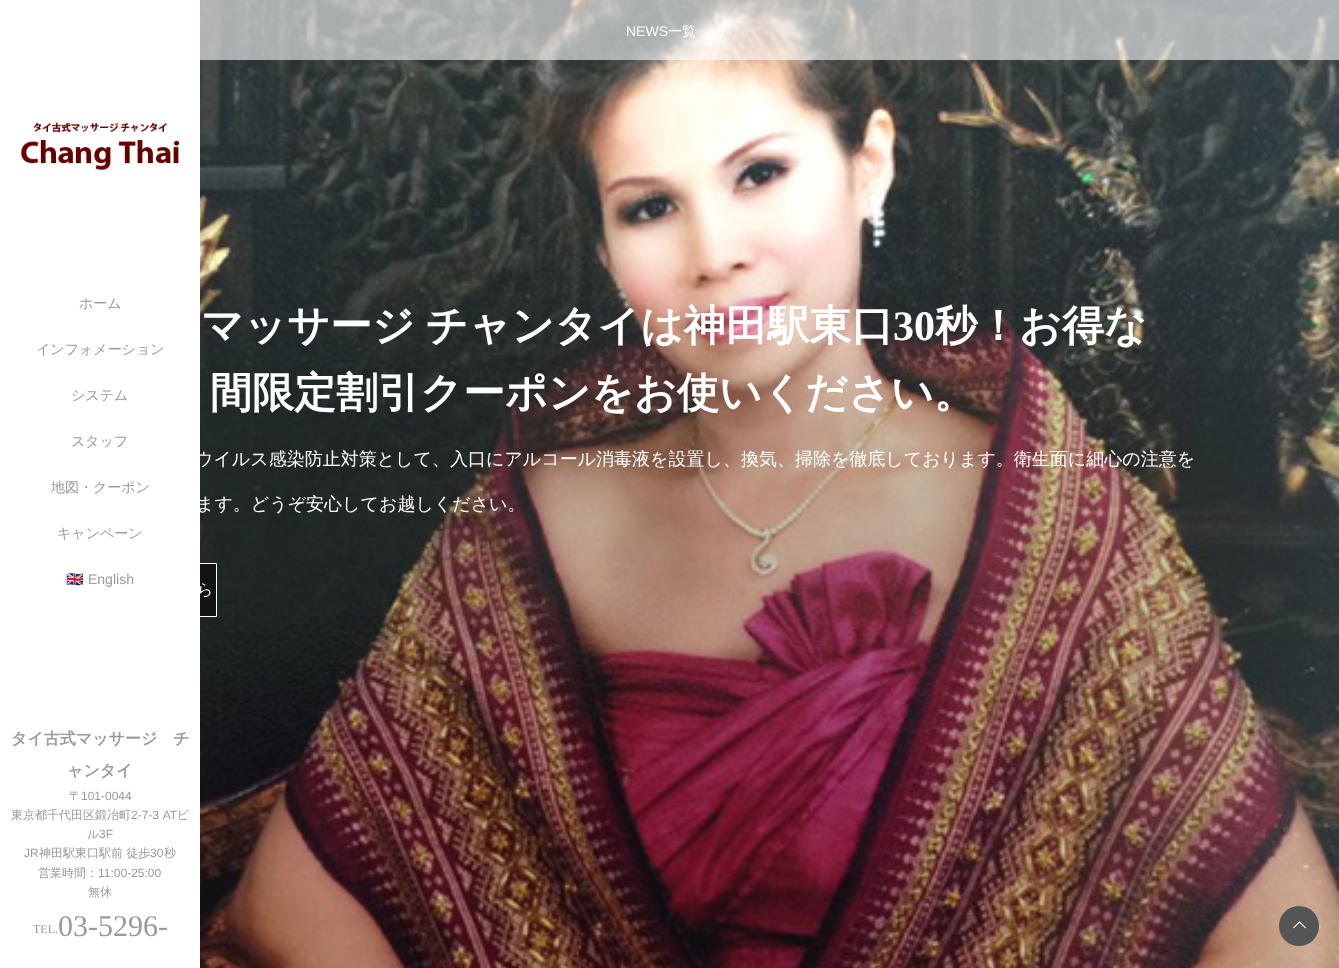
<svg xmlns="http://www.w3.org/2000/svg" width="1339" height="968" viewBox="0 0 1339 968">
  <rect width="100%" height="100%" fill="#fff"/>
  <image x="20" y="122" width="160" height="48" href="img/1.png"/>
  <image x="200" y="0" width="1139" height="968" href="img/3.png"/>
  <path d="M200 0h1139v60H200z" fill="#ffffff99"/>
  <image x="718" y="25" width="7" height="12" href="img/2.png"/>
  <path d="M200 564h16v52H200z" fill="#00000080"/>
  <path d="M31.5 563.5h185v53H31.5z" fill="none" stroke="#fff"/>
  <circle cx="1299" cy="926" r="20" fill="#555"/>
  <image x="1293" y="921" width="13" height="8" href="img/4.png"/>
  <g font-family="WenQuanYi Zen Hei" font-size="14" font-weight="500" fill="#999">
    <text x="79" y="308">ホーム</text>
    <text x="36" y="354">インフォメーション</text>
    <text x="71" y="400">システム</text>
    <text x="71" y="446">スタッフ</text>
    <text x="51" y="492">地図・クーポン</text>
    <text x="57" y="538">キャンペーン</text>
  </g>
  <text x="66" y="584" font-family="Noto Color Emoji" font-size="14" fill="#999">🇬🇧</text>
  <text x="88" y="584" font-family="Liberation Sans" font-size="14" fill="#999">English</text>
  <g font-family="WenQuanYi Zen Hei" font-size="16" font-weight="bold" fill="#999">
    <text x="11" y="744">タイ古式マッサージ　チ</text>
    <text x="67" y="776">ャンタイ</text>
  </g>
  <text x="69" y="800" font-family="WenQuanYi Zen Hei" font-size="12" font-weight="500" fill="#999">〒</text>
  <text x="81" y="800" font-family="Liberation Sans" font-size="12" fill="#999">101-0044</text>
  <text x="11" y="819" font-family="WenQuanYi Zen Hei" font-size="12" font-weight="500" fill="#999">東京都千代田区鍛冶町</text>
  <text x="131" y="819" word-spacing="1" font-family="Liberation Sans" font-size="12" fill="#999">2-7-3 AT</text>
  <g font-family="WenQuanYi Zen Hei" font-size="12" font-weight="500" fill="#999">
    <text x="177" y="819">ビ</text>
    <text x="87" y="838">ル</text>
  </g>
  <g font-family="Liberation Sans" font-size="12" fill="#999">
    <text x="99" y="838">3F</text>
    <text x="24" y="857">JR</text>
  </g>
  <text x="39" y="857" font-family="WenQuanYi Zen Hei" font-size="12" font-weight="500" fill="#999">神田駅東口駅前 徒歩</text>
  <text x="150" y="857" font-family="Liberation Sans" font-size="12" fill="#999">30</text>
  <g font-family="WenQuanYi Zen Hei" font-size="12" font-weight="500" fill="#999">
    <text x="164" y="857">秒</text>
    <text x="38" y="877">営業時間：</text>
  </g>
  <text x="98" y="877" font-family="Liberation Sans" font-size="12" fill="#999">11:00-25:00</text>
  <text x="88" y="896" font-family="WenQuanYi Zen Hei" font-size="12" font-weight="500" fill="#999">無休</text>
  <text x="33" y="933" font-family="Liberation Serif" font-size="12" fill="#999">TEL.</text>
  <text x="58" y="936" font-family="Liberation Serif" font-size="30" fill="#999">03-5296-</text>
  <text x="626" y="36" font-family="Liberation Sans" font-size="14" fill="#fff">NEWS</text>
  <text x="668" y="36" font-family="WenQuanYi Zen Hei" font-size="14" font-weight="500" fill="#fff">一覧</text>
  <text x="201" y="340" word-spacing="-2" font-family="WenQuanYi Zen Hei" font-size="42" font-weight="bold" fill="#fff">マッサージ チャンタイは神田駅東口</text>
  <text x="893" y="340" font-family="Liberation Serif" font-size="42" font-weight="bold" fill="#fff">30</text>
  <g font-family="WenQuanYi Zen Hei" font-size="42" font-weight="bold" fill="#fff">
    <text x="935" y="340">秒！お得な</text>
    <text x="210" y="407">間限定割引クーポンをお使いください。</text>
  </g>
  <g font-family="WenQuanYi Zen Hei" font-size="18" font-weight="500" fill="#fff">
    <text x="195" y="465">ウイルス感染防止対策として、入口にアルコール消毒液を設置し、換気、掃除を徹底しております。衛生面に細心の注意を</text>
    <text x="196" y="510">ます。どうぞ安心してお越しください。</text>
  </g>
  <text x="197" y="595" font-family="WenQuanYi Zen Hei" font-size="16" font-weight="500" fill="#fff">ら</text>
</svg>
